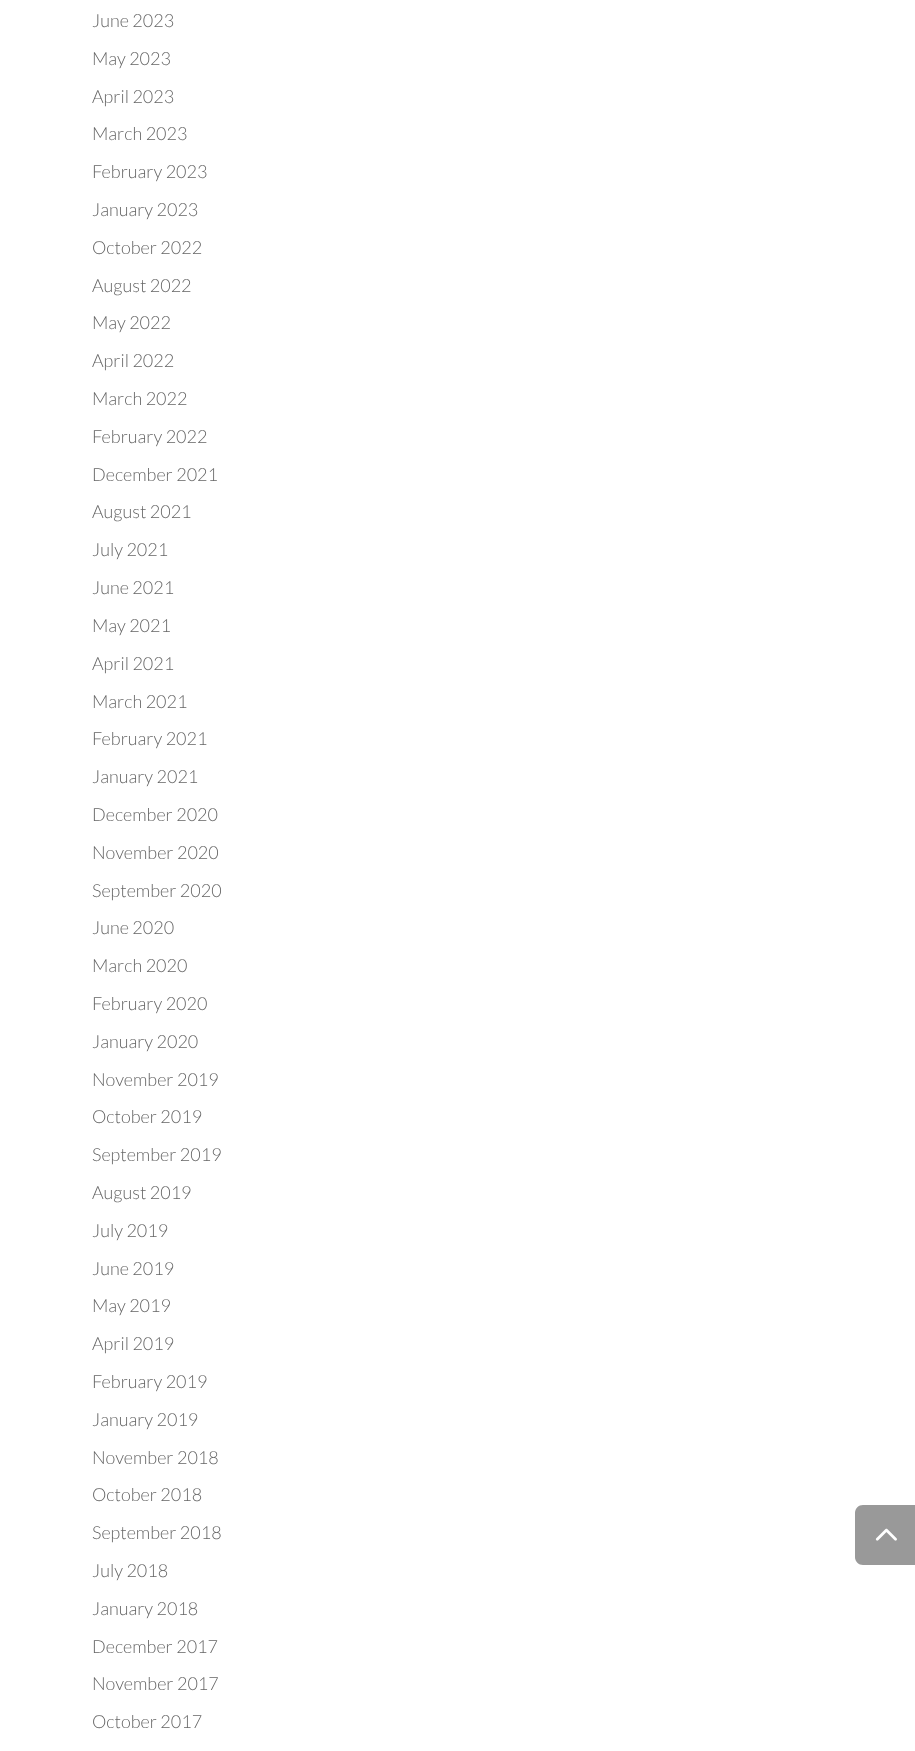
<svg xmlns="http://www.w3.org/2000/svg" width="915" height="1751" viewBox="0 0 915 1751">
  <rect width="100%" height="100%" fill="#fff"/>
  <path d="M863 1505H915V1565H863C858.5 1565 855 1561.5 855 1557V1513C855 1508.5 858.5 1505 863 1505Z" fill="#999"/>
  <image x="875" y="1528" width="22" height="13" href="img/1.png"/>
  <g font-family="Lato" font-size="18" font-weight="300" fill="#666">
    <text x="92" y="27">June 2023</text>
    <text x="92" y="65">May 2023</text>
    <text x="92" y="103">April 2023</text>
    <text x="92" y="140">March 2023</text>
    <text x="92" y="178">February 2023</text>
    <text x="92" y="216">January 2023</text>
    <text x="92" y="254">October 2022</text>
    <text x="92" y="292">August 2022</text>
    <text x="92" y="329">May 2022</text>
    <text x="92" y="367">April 2022</text>
    <text x="92" y="405">March 2022</text>
    <text x="92" y="443">February 2022</text>
    <text x="92" y="481">December 2021</text>
    <text x="92" y="518">August 2021</text>
    <text x="92" y="556">July 2021</text>
    <text x="92" y="594">June 2021</text>
    <text x="92" y="632">May 2021</text>
    <text x="92" y="670">April 2021</text>
    <text x="92" y="708">March 2021</text>
    <text x="92" y="745">February 2021</text>
    <text x="92" y="783">January 2021</text>
    <text x="92" y="821">December 2020</text>
    <text x="92" y="859">November 2020</text>
    <text x="92" y="897">September 2020</text>
    <text x="92" y="934">June 2020</text>
    <text x="92" y="972">March 2020</text>
    <text x="92" y="1010">February 2020</text>
    <text x="92" y="1048">January 2020</text>
    <text x="92" y="1086">November 2019</text>
    <text x="92" y="1123">October 2019</text>
    <text x="92" y="1161">September 2019</text>
    <text x="92" y="1199">August 2019</text>
    <text x="92" y="1237">July 2019</text>
    <text x="92" y="1275">June 2019</text>
    <text x="92" y="1312">May 2019</text>
    <text x="92" y="1350">April 2019</text>
    <text x="92" y="1388">February 2019</text>
    <text x="92" y="1426">January 2019</text>
    <text x="92" y="1464">November 2018</text>
    <text x="92" y="1501">October 2018</text>
    <text x="92" y="1539">September 2018</text>
    <text x="92" y="1577">July 2018</text>
    <text x="92" y="1615">January 2018</text>
    <text x="92" y="1653">December 2017</text>
    <text x="92" y="1690">November 2017</text>
    <text x="92" y="1728">October 2017</text>
  </g>
</svg>
